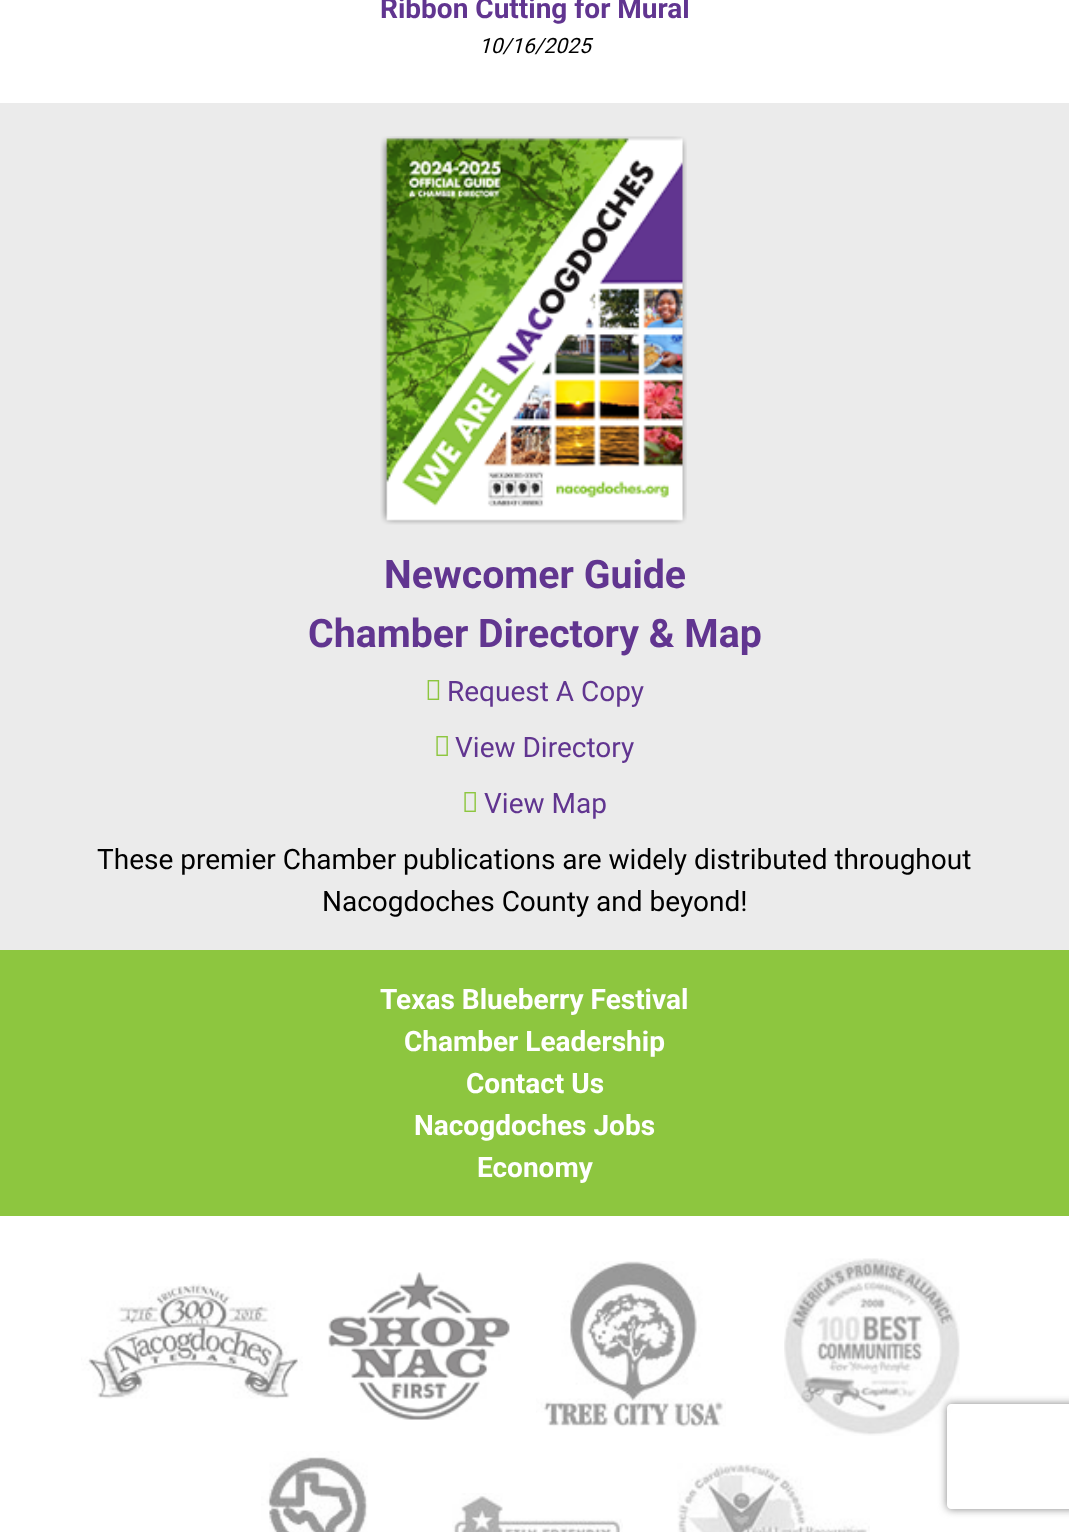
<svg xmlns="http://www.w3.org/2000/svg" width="1069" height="1532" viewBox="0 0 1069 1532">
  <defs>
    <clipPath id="clip1"><path d="M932 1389H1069V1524H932ZM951 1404H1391C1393 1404 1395 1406 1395 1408V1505C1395 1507 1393 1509 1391 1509H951C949 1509 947 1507 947 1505V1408C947 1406 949 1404 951 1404Z" clip-rule="evenodd"/></clipPath>
  </defs>
  <rect width="100%" height="100%" fill="#fff"/>
  <path d="M0 103h1069v847H0z" fill="#ebebeb"/>
  <image x="380" y="136" width="307" height="389" href="img/1.png"/>
  <image x="427" y="680" width="13" height="20" href="img/2.png"/>
  <image x="436" y="736" width="12" height="20" href="img/3.png"/>
  <image x="464" y="792" width="12" height="20" href="img/3.png"/>
  <path d="M0 950h1069v266H0z" fill="#8dc63f"/>
  <image x="81" y="1283" width="222" height="116" href="img/4.png"/>
  <image x="328" y="1272" width="182" height="148" href="img/5.png"/>
  <image x="536" y="1261" width="190" height="166" href="img/6.png"/>
  <image x="784" y="1258" width="176" height="178" href="img/7.png"/>
  <image x="261" y="1451" width="107" height="81" href="img/8.png"/>
  <image x="452" y="1493" width="171" height="39" href="img/9.png"/>
  <image x="677" y="1463" width="193" height="69" href="img/10.png"/>
  <g clip-path="url(#clip1)">
    <rect x="947" y="1404" width="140" height="105" rx="4" fill="#808080" filter="blur(4.5px)"/>
  </g>
  <text x="380" y="18" font-family="Roboto" font-size="28" font-weight="bold" fill="#613590">Ribbon Cutting for Mural</text>
  <text x="479" y="53" font-family="Roboto" font-size="21" font-style="italic" fill="#000">10/16/2025</text>
  <g font-family="Roboto" font-size="39.25" font-weight="bold" fill="#613590">
    <text x="384" y="588">Newcomer Guide</text>
    <text x="308" y="647">Chamber Directory &amp; Map</text>
  </g>
  <g font-family="Roboto" font-size="28" fill="#613590">
    <text x="447" y="701">Request A Copy</text>
    <text x="455" y="757">View Directory</text>
    <text x="484" y="813">View Map</text>
  </g>
  <g font-family="Roboto" font-size="28" fill="#000">
    <text x="97" y="869">These premier Chamber publications are widely distributed throughout</text>
    <text x="322" y="911">Nacogdoches County and beyond!</text>
  </g>
  <g font-family="Roboto" font-size="28" font-weight="bold" fill="#fff">
    <text x="380" y="1009">Texas Blueberry Festival</text>
    <text x="404" y="1051">Chamber Leadership</text>
    <text x="466" y="1093">Contact Us</text>
    <text x="414" y="1135">Nacogdoches Jobs</text>
    <text x="477" y="1177">Economy</text>
  </g>
</svg>
